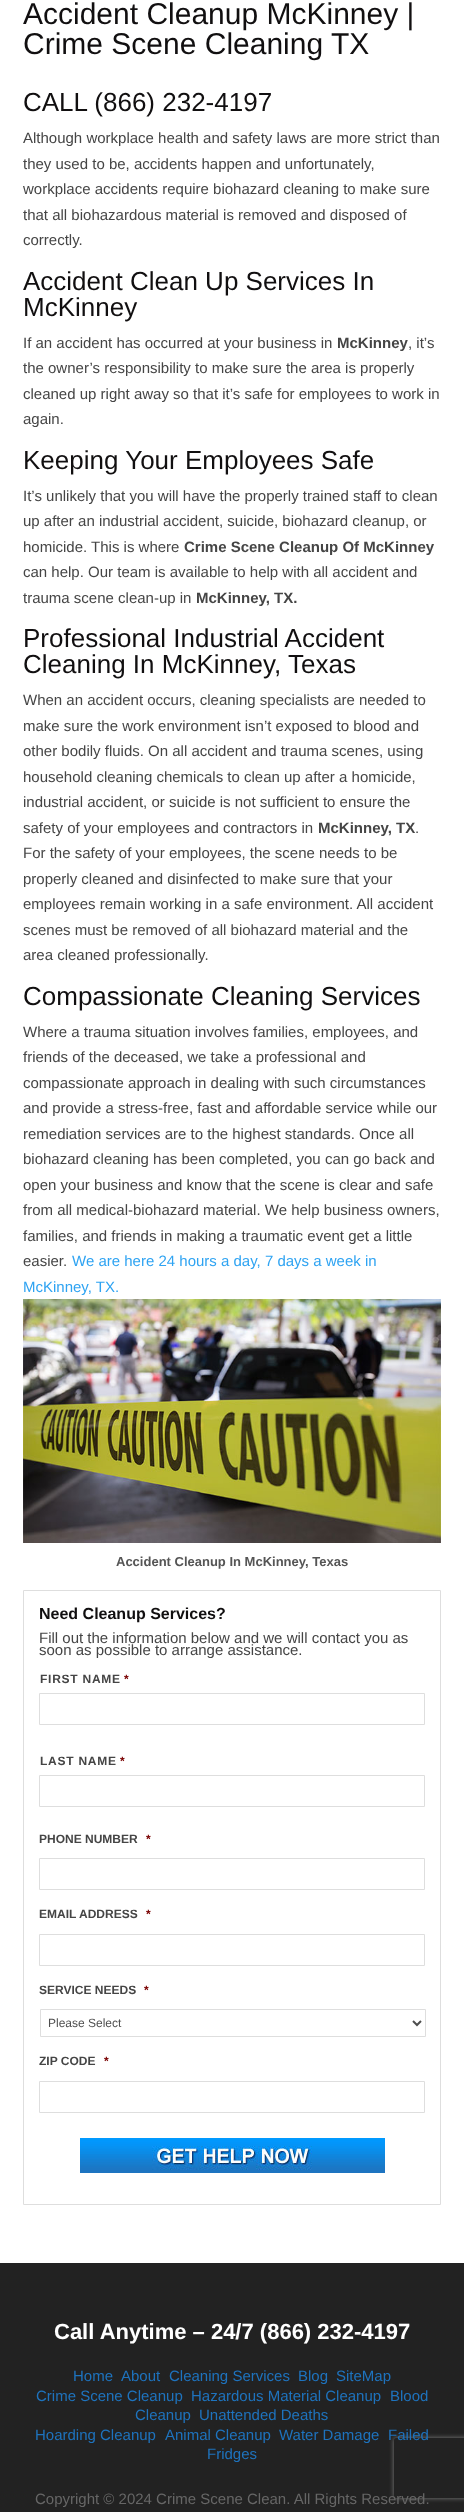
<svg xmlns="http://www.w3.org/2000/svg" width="464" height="2512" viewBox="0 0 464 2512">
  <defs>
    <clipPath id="clip1"><path d="M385 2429H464V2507H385ZM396 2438H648C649 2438 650 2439 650 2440V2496C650 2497 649 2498 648 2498H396C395 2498 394 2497 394 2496V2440C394 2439 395 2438 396 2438Z" clip-rule="evenodd"/></clipPath>
  </defs>
  <rect width="100%" height="100%" fill="#fff"/>
  <image x="23" y="1299" width="418" height="244" href="img/1.png"/>
  <path d="M23.5 1590.5h417v614H23.5z" fill="none" stroke="#dedede"/>
  <path d="M39.5 1693.5h385v31H39.5z" fill="none" stroke="#dedede"/>
  <path d="M39.5 1775.5h385v31H39.5z" fill="none" stroke="#dedede"/>
  <path d="M39.5 1858.5h385v31H39.5z" fill="none" stroke="#dedede"/>
  <path d="M39.5 1934.5h385v31H39.5z" fill="none" stroke="#dedede"/>
  <path d="M40.5 2009.5h385v27H40.5z" fill="none" stroke="#dedede"/>
  <path d="M413 2021L417 2025L421 2021" fill="none" stroke="#4e4e4e" stroke-width="2"/>
  <path d="M39.5 2081.5h385v31H39.5z" fill="none" stroke="#dedede"/>
  <image x="80" y="2138" width="305" height="35" href="img/2.png"/>
  <path d="M0 2263h464v249H0z" fill="#222"/>
  <g clip-path="url(#clip1)">
    <rect x="394" y="2438" width="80" height="60" rx="2" fill="#808080" filter="blur(2.5px)"/>
  </g>
  <g font-family="Liberation Sans" font-size="30" fill="#110f10">
    <text x="23" y="24">Accident Cleanup McKinney |</text>
    <text x="23" y="54">Crime Scene Cleaning TX</text>
  </g>
  <text x="23" y="111" font-family="Liberation Sans" font-size="26" fill="#110f10">CALL (866) 232-4197</text>
  <g font-family="Liberation Sans" font-size="15" fill="#454545">
    <text x="23" y="143">Although workplace health and safety laws are more strict than</text>
    <text x="23" y="169">they used to be, accidents happen and unfortunately,</text>
    <text x="23" y="194">workplace accidents require biohazard cleaning to make sure</text>
    <text x="23" y="220">that all biohazardous material is removed and disposed of</text>
    <text x="23" y="245">correctly.</text>
  </g>
  <g font-family="Liberation Sans" font-size="26" fill="#110f10">
    <text x="23" y="290">Accident Clean Up Services In</text>
    <text x="23" y="316">McKinney</text>
  </g>
  <text x="23" y="348" font-family="Liberation Sans" font-size="15" fill="#454545">If an accident has occurred at your business in</text>
  <text x="337" y="348" font-family="Liberation Sans" font-size="15" font-weight="bold" fill="#454545">McKinney</text>
  <g font-family="Liberation Sans" font-size="15" fill="#454545">
    <text x="408" y="348">, it’s</text>
    <text x="23" y="373">the owner’s responsibility to make sure the area is properly</text>
    <text x="23" y="399">cleaned up right away so that it’s safe for employees to work in</text>
    <text x="23" y="424">again.</text>
  </g>
  <text x="23" y="469" font-family="Liberation Sans" font-size="26" fill="#110f10">Keeping Your Employees Safe</text>
  <g font-family="Liberation Sans" font-size="15" fill="#454545">
    <text x="23" y="501">It’s unlikely that you will have the properly trained staff to clean</text>
    <text x="23" y="526">up after an industrial accident, suicide, biohazard cleanup, or</text>
    <text x="23" y="552">homicide. This is where</text>
  </g>
  <text x="184" y="552" font-family="Liberation Sans" font-size="15" font-weight="bold" fill="#454545">Crime Scene Cleanup Of McKinney</text>
  <g font-family="Liberation Sans" font-size="15" fill="#454545">
    <text x="23" y="577">can help. Our team is available to help with all accident and</text>
    <text x="23" y="603">trauma scene clean-up in</text>
  </g>
  <text x="196" y="603" font-family="Liberation Sans" font-size="15" font-weight="bold" fill="#454545">McKinney, TX.</text>
  <g font-family="Liberation Sans" font-size="26" fill="#110f10">
    <text x="23" y="647">Professional Industrial Accident</text>
    <text x="23" y="673">Cleaning In McKinney, Texas</text>
  </g>
  <g font-family="Liberation Sans" font-size="15" fill="#454545">
    <text x="23" y="705">When an accident occurs, cleaning specialists are needed to</text>
    <text x="23" y="731">make sure the work environment isn’t exposed to blood and</text>
    <text x="23" y="756">other bodily fluids. On all accident and trauma scenes, using</text>
    <text x="23" y="782">household cleaning chemicals to clean up after a homicide,</text>
    <text x="23" y="807">industrial accident, or suicide is not sufficient to ensure the</text>
    <text x="23" y="833">safety of your employees and contractors in</text>
  </g>
  <text x="318" y="833" font-family="Liberation Sans" font-size="15" font-weight="bold" fill="#454545">McKinney, TX</text>
  <g font-family="Liberation Sans" font-size="15" fill="#454545">
    <text x="415" y="833">.</text>
    <text x="23" y="858">For the safety of your employees, the scene needs to be</text>
    <text x="23" y="884">properly cleaned and disinfected to make sure that your</text>
    <text x="23" y="909">employees remain working in a safe environment. All accident</text>
    <text x="23" y="935">scenes must be removed of all biohazard material and the</text>
    <text x="23" y="960">area cleaned professionally.</text>
  </g>
  <text x="23" y="1005" font-family="Liberation Sans" font-size="26" fill="#110f10">Compassionate Cleaning Services</text>
  <g font-family="Liberation Sans" font-size="15" fill="#454545">
    <text x="23" y="1037">Where a trauma situation involves families, employees, and</text>
    <text x="23" y="1062">friends of the deceased, we take a professional and</text>
    <text x="23" y="1088">compassionate approach in dealing with such circumstances</text>
    <text x="23" y="1113">and provide a stress-free, fast and affordable service while our</text>
    <text x="23" y="1139">remediation services are to the highest standards. Once all</text>
    <text x="23" y="1164">biohazard cleaning has been completed, you can go back and</text>
    <text x="23" y="1190">open your business and know that the scene is clear and safe</text>
    <text x="23" y="1215">from all medical-biohazard material. We help business owners,</text>
    <text x="23" y="1241">families, and friends in making a traumatic event get a little</text>
    <text x="23" y="1266">easier.</text>
  </g>
  <g font-family="Liberation Sans" font-size="15" fill="#2ea3f2">
    <text x="72" y="1266">We are here 24 hours a day, 7 days a week in</text>
    <text x="23" y="1292">McKinney, TX.</text>
  </g>
  <text x="116" y="1566" font-family="Liberation Sans" font-size="13" font-weight="bold" fill="#555">Accident Cleanup In McKinney, Texas</text>
  <text x="39" y="1619" font-family="Liberation Sans" font-size="16" font-weight="bold" fill="#110f10">Need Cleanup Services?</text>
  <g font-family="Liberation Sans" font-size="15" fill="#454545">
    <text x="39" y="1643">Fill out the information below and we will contact you as</text>
    <text x="39" y="1655">soon as possible to arrange assistance.</text>
  </g>
  <text x="40" y="1683" font-family="Liberation Sans" font-size="12" font-weight="bold" letter-spacing="0.75" fill="#454545">FIRST NAME</text>
  <text x="124" y="1683" font-family="Liberation Sans" font-size="12" font-weight="bold" letter-spacing="0.75" fill="#790000">*</text>
  <text x="40" y="1765" font-family="Liberation Sans" font-size="12" font-weight="bold" letter-spacing="0.75" fill="#454545">LAST NAME</text>
  <text x="120" y="1765" font-family="Liberation Sans" font-size="12" font-weight="bold" letter-spacing="0.75" fill="#790000">*</text>
  <text x="39" y="1843" font-family="Liberation Sans" font-size="12" font-weight="bold" fill="#454545">PHONE NUMBER</text>
  <text x="146" y="1843" font-family="Liberation Sans" font-size="12" font-weight="bold" fill="#790000">*</text>
  <text x="39" y="1918" font-family="Liberation Sans" font-size="12" font-weight="bold" fill="#454545">EMAIL ADDRESS</text>
  <text x="146" y="1918" font-family="Liberation Sans" font-size="12" font-weight="bold" fill="#790000">*</text>
  <text x="39" y="1994" font-family="Liberation Sans" font-size="12" font-weight="bold" fill="#454545">SERVICE NEEDS</text>
  <text x="144" y="1994" font-family="Liberation Sans" font-size="12" font-weight="bold" fill="#790000">*</text>
  <text x="48" y="2027" font-family="Liberation Sans" font-size="12" fill="#4e4e4e">Please Select</text>
  <text x="39" y="2065" font-family="Liberation Sans" font-size="12" font-weight="bold" fill="#454545">ZIP CODE</text>
  <text x="104" y="2065" font-family="Liberation Sans" font-size="12" font-weight="bold" fill="#790000">*</text>
  <text x="54" y="2339" font-family="Liberation Sans" font-size="22" font-weight="bold" fill="#fff">Call Anytime – 24/7 (866) 232-4197</text>
  <g font-family="Liberation Sans" font-size="15" fill="#1e73be">
    <text x="73" y="2381">Home</text>
    <text x="121" y="2381">About</text>
    <text x="169" y="2381">Cleaning Services</text>
    <text x="298" y="2381">Blog</text>
    <text x="336" y="2381">SiteMap</text>
    <text x="36" y="2401">Crime Scene Cleanup</text>
    <text x="191" y="2401">Hazardous Material Cleanup</text>
    <text x="390" y="2401">Blood</text>
    <text x="135" y="2420">Cleanup</text>
    <text x="199" y="2420">Unattended Deaths</text>
    <text x="35" y="2440">Hoarding Cleanup</text>
    <text x="165" y="2440">Animal Cleanup</text>
    <text x="279" y="2440">Water Damage</text>
    <text x="388" y="2440">Failed</text>
    <text x="207" y="2459">Fridges</text>
  </g>
  <text x="35" y="2504" font-family="Liberation Sans" font-size="15" fill="#666">Copyright © 2024 Crime Scene Clean. All Rights Reserved.</text>
</svg>
